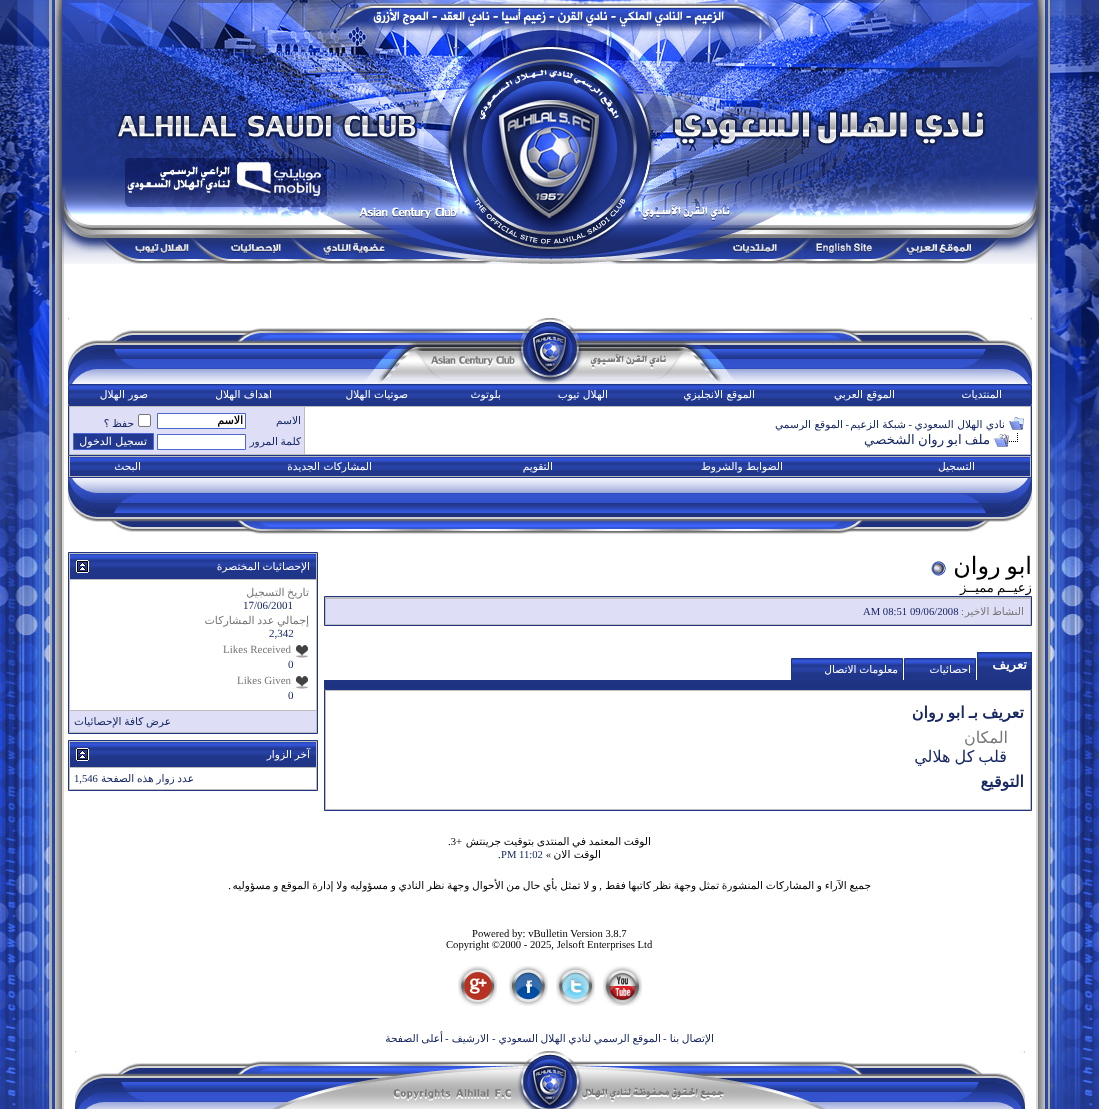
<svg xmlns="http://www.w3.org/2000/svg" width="1099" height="1109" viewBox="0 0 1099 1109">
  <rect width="100%" height="100%" fill="#fff"/>
  <image x="0" y="0" width="1099" height="1109" href="img/1.png"/>
  <image x="50" y="0" width="1000" height="264" href="img/2.png"/>
  <image x="50" y="264" width="1000" height="845" href="img/3.png"/>
  <image x="951" y="318" width="81" height="66" href="img/4.png"/>
  <image x="864" y="330" width="87" height="54" href="img/5.png"/>
  <image x="236" y="318" width="628" height="66" href="img/6.png"/>
  <image x="149" y="330" width="87" height="54" href="img/5.png"/>
  <image x="68" y="318" width="81" height="66" href="img/7.png"/>
  <path d="M68.5 384.5h963v20H68.5z" fill="none" stroke="#203585"/>
  <image x="932" y="385" width="99" height="19" href="img/8.png"/>
  <image x="797" y="385" width="135" height="19" href="img/9.png"/>
  <image x="641" y="385" width="156" height="19" href="img/10.png"/>
  <image x="526" y="385" width="115" height="19" href="img/11.png"/>
  <image x="446" y="385" width="80" height="19" href="img/12.png"/>
  <image x="308" y="385" width="138" height="19" href="img/13.png"/>
  <image x="180" y="385" width="128" height="19" href="img/14.png"/>
  <image x="69" y="385" width="111" height="19" href="img/15.png"/>
  <path d="M68.5 405.5h963v50H68.5z" fill="#bdbdbd" stroke="#203585"/>
  <path d="M305 407h725v47H305z" fill="#fff"/>
  <image x="1009" y="417" width="15" height="13" href="img/16.png"/>
  <image x="994" y="433" width="24" height="14" href="img/17.png"/>
  <path d="M70 407h234v47H70z" fill="#dedff7"/>
  <path d="M157.5 413.5h88v15H157.5z" fill="#fff" stroke="#4b67d6"/>
  <rect x="138.5" y="414.5" width="12" height="12" rx="1.5" fill="#fff" stroke="#767676"/>
  <path d="M157.5 434.5h88v15H157.5z" fill="#fff" stroke="#4b67d6"/>
  <path d="M73.5 433.5h80v16H73.5z" fill="#223991" stroke="#4b67d6"/>
  <path d="M69 456h962v21H69z" fill="#bdbdbd"/>
  <path d="M1031 456h1v22H1031z" fill="#203585"/>
  <path d="M68 477h964v1H68z" fill="#203585"/>
  <path d="M68 456h1v22H68z" fill="#203585"/>
  <image x="882" y="457" width="148" height="19" href="img/18.png"/>
  <image x="602" y="457" width="280" height="19" href="img/19.png"/>
  <image x="475" y="457" width="127" height="19" href="img/20.png"/>
  <image x="186" y="457" width="289" height="19" href="img/21.png"/>
  <image x="70" y="457" width="116" height="19" href="img/22.png"/>
  <image x="140" y="478" width="819" height="54" href="img/23.png"/>
  <image x="959" y="478" width="73" height="56" href="img/24.png"/>
  <image x="236" y="518" width="628" height="16" href="img/25.png"/>
  <image x="68" y="478" width="72" height="56" href="img/26.png"/>
  <image x="931" y="561" width="15" height="15" href="img/27.png"/>
  <path d="M324.5 596.5h707v29H324.5z" fill="#bdbdbd" stroke="#203585"/>
  <path d="M326 599h704v25H326z" fill="#dedff7"/>
  <image x="325" y="680" width="706" height="9" href="img/31.png"/>
  <image x="978" y="653" width="53" height="28" href="img/28.png"/>
  <path d="M977 652h55v1H977z" fill="#203585"/>
  <path d="M1031 680h1v9H1031z" fill="#203585"/>
  <path d="M1031 652h1v29H1031z" fill="#203585"/>
  <path d="M977 652h1v29H977z" fill="#203585"/>
  <image x="905" y="659" width="70" height="21" href="img/29.png"/>
  <path d="M904.5 658.5h71v22H904.5z" fill="none" stroke="#203585"/>
  <image x="792" y="659" width="110" height="21" href="img/30.png"/>
  <path d="M791.5 658.5h111v22H791.5z" fill="none" stroke="#203585"/>
  <path d="M324 680h1v9H324z" fill="#203585"/>
  <path d="M324.5 689.5h707v121H324.5z" fill="#bdbdbd" stroke="#203585"/>
  <path d="M326 691h704v118H326z" fill="#fff"/>
  <path d="M68.5 552.5h249v181H68.5z" fill="#bdbdbd" stroke="#203585"/>
  <image x="70" y="554" width="246" height="25" href="img/32.png"/>
  <image x="76" y="560" width="13" height="13" href="img/33.png"/>
  <path d="M70 580h246v130H70z" fill="#fff"/>
  <image x="296" y="645" width="12" height="13" href="img/34.png"/>
  <image x="296" y="676" width="12" height="13" href="img/34.png"/>
  <path d="M70 711h246v21H70z" fill="#dedff7"/>
  <path d="M68.5 740.5h249v50H68.5z" fill="#bdbdbd" stroke="#203585"/>
  <image x="70" y="742" width="246" height="25" href="img/32.png"/>
  <image x="76" y="748" width="13" height="13" href="img/33.png"/>
  <path d="M70 768h246v21H70z" fill="#fff"/>
  <image x="603" y="966" width="39" height="40" href="img/35.png"/>
  <image x="556" y="966" width="39" height="40" href="img/36.png"/>
  <image x="509" y="966" width="39" height="40" href="img/37.png"/>
  <image x="458" y="966" width="39" height="40" href="img/38.png"/>
  <image x="944" y="1051" width="81" height="58" href="img/39.png"/>
  <image x="864" y="1063" width="80" height="46" href="img/40.png"/>
  <image x="236" y="1051" width="628" height="58" href="img/41.png"/>
  <image x="156" y="1063" width="80" height="46" href="img/40.png"/>
  <image x="75" y="1051" width="81" height="58" href="img/42.png"/>
  <g font-family="DejaVu Sans" font-size="10.65" direction="rtl" fill="#fff">
    <text x="1002" y="398">المنتديات</text>
    <text x="895" y="398">الموقع العربي</text>
    <text x="755" y="398">الموقع الانجليزي</text>
    <text x="608" y="398">الهلال تيوب</text>
    <text x="501" y="398">بلوتوث</text>
    <text x="408" y="398">صوتيات الهلال</text>
    <text x="272" y="398">اهداف الهلال</text>
    <text x="148" y="398">صور الهلال</text>
  </g>
  <text x="1005" y="428" font-family="DejaVu Sans" font-size="10.65" direction="rtl" fill="#172763">نادي الهلال السعودي</text>
  <text x="912" y="428" font-family="Liberation Serif" font-size="10.65" direction="rtl" fill="#172763">-</text>
  <text x="906" y="428" font-family="DejaVu Sans" font-size="10.65" direction="rtl" fill="#172763">شبكة الزعيم</text>
  <text x="849" y="428" font-family="Liberation Serif" font-size="10.65" direction="rtl" fill="#172763">-</text>
  <text x="843" y="428" font-family="DejaVu Sans" font-size="10.65" direction="rtl" fill="#172763">الموقع الرسمي</text>
  <text x="990" y="444" word-spacing="-1" font-family="DejaVu Sans" font-size="13.25" direction="rtl" fill="#172763">ملف ابو روان الشخصي</text>
  <text x="301" y="424" font-family="DejaVu Sans" font-size="10.65" direction="rtl" fill="#172763">الاسم</text>
  <text x="243" y="424" font-family="DejaVu Sans" font-size="11" font-weight="bold" direction="rtl" fill="#000">الاسم</text>
  <g font-family="DejaVu Sans" font-size="10.65" direction="rtl" fill="#172763">
    <text x="134" y="427" word-spacing="-0.75">حفظ ؟</text>
    <text x="301" y="445" word-spacing="-0.75">كلمة المرور</text>
  </g>
  <text x="147" y="445" font-family="DejaVu Sans" font-size="11" direction="rtl" fill="#fff">تسجيل الدخول</text>
  <g font-family="DejaVu Sans" font-size="10.65" direction="rtl" fill="#fff">
    <text x="975" y="470">التسجيل</text>
    <text x="783" y="470">الضوابط والشروط</text>
    <text x="553" y="470">التقويم</text>
    <text x="372" y="470">المشاركات الجديدة</text>
    <text x="141" y="470">البحث</text>
  </g>
  <text x="1032" y="574" word-spacing="-2" font-family="DejaVu Sans" font-size="24" direction="rtl" fill="#000">ابو روان</text>
  <text x="1032" y="592" word-spacing="-1" font-family="DejaVu Sans" font-size="13.25" direction="rtl" fill="#000">زعيــم مميــز</text>
  <text x="964" y="615" font-family="Liberation Serif" font-size="10.65" direction="rtl" fill="#777">:</text>
  <text x="1024" y="615" word-spacing="-0.75" font-family="DejaVu Sans" font-size="10.65" direction="rtl" fill="#777">النشاط الاخير</text>
  <g font-family="Liberation Serif" font-size="10.65" fill="#172763">
    <text x="910" y="615">09/06/2008</text>
    <text x="863" y="615">AM 08:51</text>
  </g>
  <text x="1027" y="669" font-family="DejaVu Sans" font-size="13.25" font-weight="bold" direction="rtl" fill="#fff">تعريف</text>
  <g font-family="DejaVu Sans" font-size="10.65" direction="rtl" fill="#fff">
    <text x="971" y="673">احصائيات</text>
    <text x="898" y="673" word-spacing="-0.75">معلومات الاتصال</text>
  </g>
  <text x="1024" y="718" word-spacing="-1" font-family="DejaVu Sans" font-size="16" font-weight="bold" direction="rtl" fill="#172763">تعريف بـ ابو روان</text>
  <text x="1008" y="743" font-family="DejaVu Sans" font-size="16" direction="rtl" fill="#777">المكان</text>
  <text x="1007" y="762" word-spacing="-1" font-family="DejaVu Sans" font-size="16" direction="rtl" fill="#172763">قلب كل هلالي</text>
  <text x="1024" y="787" font-family="DejaVu Sans" font-size="16" font-weight="bold" direction="rtl" fill="#172763">التوقيع</text>
  <text x="310" y="570" word-spacing="-0.75" font-family="DejaVu Sans" font-size="10.65" direction="rtl" fill="#fff">الإحصائيات المختصرة</text>
  <text x="309" y="596" word-spacing="-1" font-family="DejaVu Sans" font-size="11" direction="rtl" fill="#777">تاريخ التسجيل</text>
  <text x="243" y="609" font-family="Liberation Serif" font-size="11" fill="#172763">17/06/2001</text>
  <text x="309" y="624" word-spacing="-1" font-family="DejaVu Sans" font-size="11" direction="rtl" fill="#777">إجمالي عدد المشاركات</text>
  <text x="269" y="637" font-family="Liberation Serif" font-size="11" fill="#172763">2,342</text>
  <text x="223" y="653" font-family="Liberation Serif" font-size="11" fill="#777">Likes Received</text>
  <text x="288" y="668" font-family="Liberation Serif" font-size="11" fill="#172763">0</text>
  <text x="237" y="684" font-family="Liberation Serif" font-size="11" fill="#777">Likes Given</text>
  <text x="288" y="699" font-family="Liberation Serif" font-size="11" fill="#172763">0</text>
  <text x="171" y="725" word-spacing="-0.75" font-family="DejaVu Sans" font-size="10.65" direction="rtl" fill="#172763">عرض كافة الإحصائيات</text>
  <text x="310" y="758" word-spacing="-0.75" font-family="DejaVu Sans" font-size="10.65" direction="rtl" fill="#fff">آخر الزوار</text>
  <text x="194" y="782" word-spacing="-0.75" font-family="DejaVu Sans" font-size="10.65" direction="rtl" fill="#172763">عدد زوار هذه الصفحة</text>
  <text x="74" y="782" font-family="Liberation Serif" font-size="10.65" fill="#172763">1,546</text>
  <text x="651" y="845" word-spacing="-0.75" font-family="DejaVu Sans" font-size="10.65" direction="rtl" fill="#000">الوقت المعتمد في المنتدى بتوقيت جرينتش</text>
  <text x="448" y="845" font-family="Liberation Serif" font-size="10.65" fill="#000">.3+</text>
  <text x="601" y="858" font-family="DejaVu Sans" font-size="10.65" direction="rtl" fill="#000">الوقت الان</text>
  <text x="551" y="858" font-family="Liberation Serif" font-size="10.65" direction="rtl" fill="#000">»</text>
  <text x="501" y="858" font-family="Liberation Serif" font-size="10.65" fill="#172763">PM 11:02</text>
  <text x="498" y="858" font-family="Liberation Serif" font-size="10.65" fill="#000">.</text>
  <text x="871" y="889" word-spacing="-0.75" font-family="DejaVu Sans" font-size="10.65" direction="rtl" fill="#000">جميع الآراء و المشاركات المنشورة تمثل وجهة نظر كاتبها فقط</text>
  <text x="602" y="889" font-family="Liberation Serif" font-size="10.65" direction="rtl" fill="#000">,</text>
  <text x="597" y="889" word-spacing="-0.75" font-family="DejaVu Sans" font-size="10.65" direction="rtl" fill="#000">و لا تمثل بأي حال من الأحوال وجهة نظر النادي و مسؤوليه ولا إدارة الموقع و مسؤوليه</text>
  <text x="231" y="889" font-family="Liberation Serif" font-size="10.65" direction="rtl" fill="#000">.</text>
  <g font-family="Liberation Serif" font-size="10.65" fill="#000">
    <text x="472" y="937">Powered by: vBulletin Version 3.8.7</text>
    <text x="446" y="948">Copyright ©2000 - 2025, Jelsoft Enterprises Ltd</text>
  </g>
  <text x="714" y="1042" word-spacing="-0.75" font-family="DejaVu Sans" font-size="10.65" direction="rtl" fill="#172763">الإتصال بنا</text>
  <text x="663" y="1042" font-family="Liberation Serif" font-size="10.65" fill="#172763">-</text>
  <text x="661" y="1042" word-spacing="-0.75" font-family="DejaVu Sans" font-size="10.65" direction="rtl" fill="#172763">الموقع الرسمي لنادي الهلال السعودي</text>
  <text x="492" y="1042" font-family="Liberation Serif" font-size="10.65" fill="#172763">-</text>
  <text x="489" y="1042" font-family="DejaVu Sans" font-size="10.65" direction="rtl" fill="#172763">الارشيف</text>
  <text x="445" y="1042" font-family="Liberation Serif" font-size="10.65" fill="#172763">-</text>
  <text x="443" y="1042" word-spacing="-0.75" font-family="DejaVu Sans" font-size="10.65" direction="rtl" fill="#172763">أعلى الصفحة</text>
</svg>
